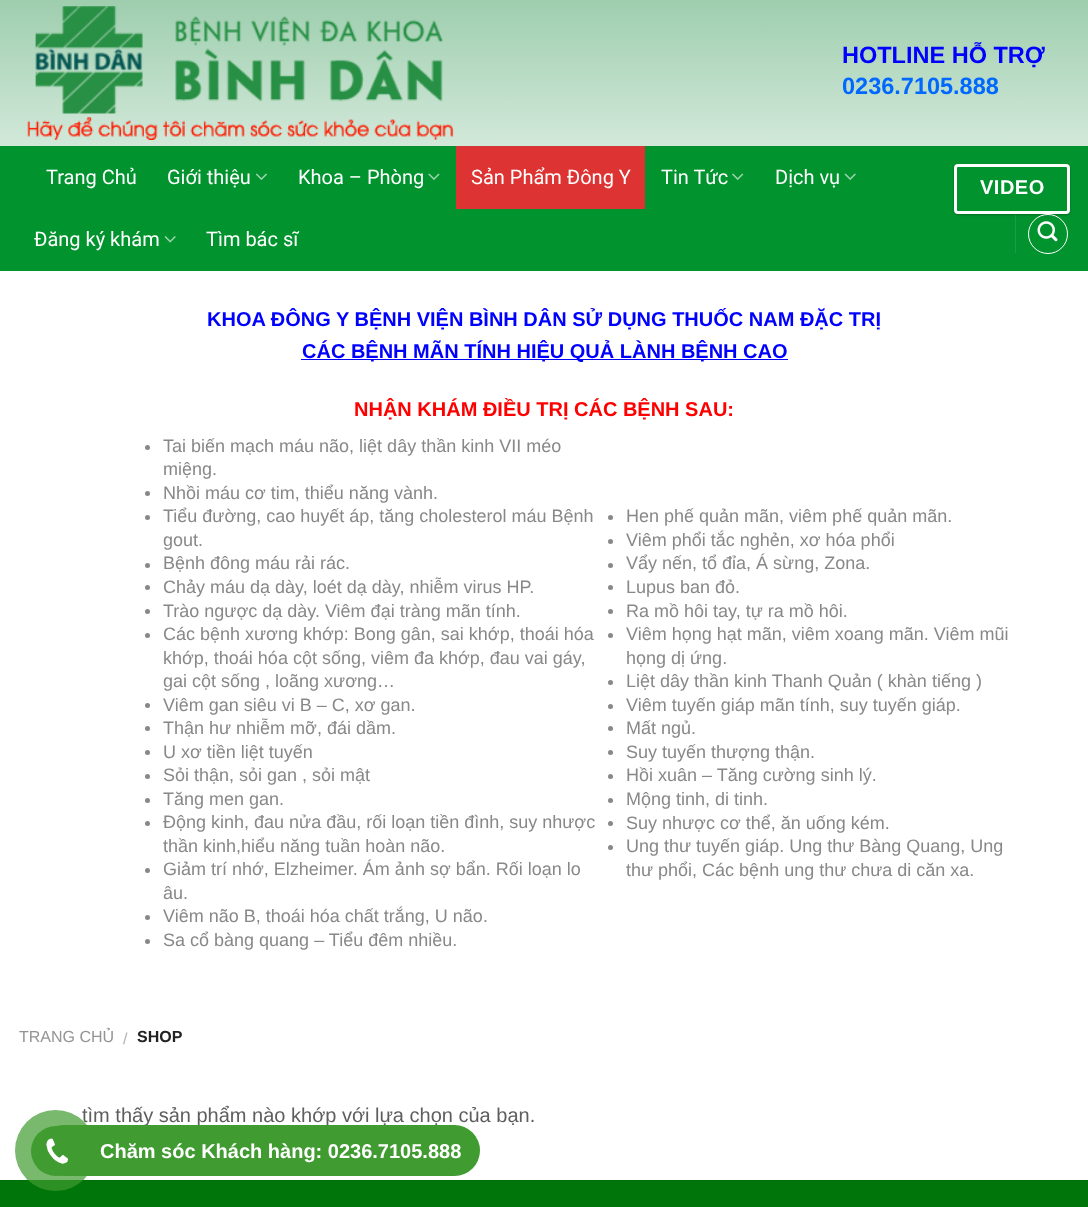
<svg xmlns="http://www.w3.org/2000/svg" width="1088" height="1207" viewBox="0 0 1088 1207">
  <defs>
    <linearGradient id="g1" gradientUnits="userSpaceOnUse" x1="544" y1="0" x2="544" y2="271"><stop offset="0" stop-color="#9eceae"/><stop offset="1" stop-color="#fff"/></linearGradient>
    <clipPath id="clip1"><path d="M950 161H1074V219H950ZM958 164H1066C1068 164 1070 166 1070 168V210C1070 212 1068 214 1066 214H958C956 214 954 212 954 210V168C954 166 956 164 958 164Z" clip-rule="evenodd"/></clipPath>
  </defs>
  <rect width="100%" height="100%" fill="#fff"/>
  <path d="M0 0h1088v146H0z" fill="url(#g1)"/>
  <image x="27" y="6" width="427" height="134" href="img/1.png"/>
  <path d="M0 146h1088v125H0z" fill="#00932e"/>
  <path d="M19 146h1051v1H19z" fill="#098e33"/>
  <image x="255" y="173" width="12" height="7" href="img/2.png"/>
  <image x="428" y="173" width="12" height="7" href="img/3.png"/>
  <path d="M456 147h189v62H456z" fill="#d33"/>
  <path d="M456 146h189v1H456z" fill="#d03737"/>
  <image x="732" y="173" width="12" height="7" href="img/4.png"/>
  <image x="844" y="173" width="12" height="7" href="img/5.png"/>
  <image x="164" y="236" width="12" height="7" href="img/6.png"/>
  <g clip-path="url(#clip1)">
    <rect x="954" y="165" width="116" height="50" rx="4" fill="#0000003d" filter="blur(1px)"/>
  </g>
  <rect x="955.5" y="165.5" width="113" height="47" rx="2.5" fill="none" stroke="#fff" stroke-width="3"/>
  <path d="M1015 215h1v38H1015z" fill="#ffffff1a"/>
  <circle cx="1048" cy="234" r="19.5" fill="none" stroke="#fff"/>
  <image x="1037" y="221" width="21" height="21" href="img/7.png"/>
  <path d="M301 359h487v1H301z" fill="#00f"/>
  <circle cx="147.5" cy="447.5" r="2.5" fill="#888"/>
  <circle cx="147.5" cy="493.5" r="2.5" fill="#888"/>
  <circle cx="147.5" cy="517.5" r="2.5" fill="#888"/>
  <circle cx="147.5" cy="565.5" r="2.5" fill="#888"/>
  <circle cx="147.5" cy="587.5" r="2.5" fill="#888"/>
  <circle cx="147.5" cy="611.5" r="2.5" fill="#888"/>
  <circle cx="147.5" cy="635.5" r="2.5" fill="#888"/>
  <circle cx="147.5" cy="705.5" r="2.5" fill="#888"/>
  <circle cx="147.5" cy="728.5" r="2.5" fill="#888"/>
  <circle cx="147.5" cy="752.5" r="2.5" fill="#888"/>
  <circle cx="147.5" cy="776.5" r="2.5" fill="#888"/>
  <circle cx="147.5" cy="800.5" r="2.5" fill="#888"/>
  <circle cx="147.5" cy="823.5" r="2.5" fill="#888"/>
  <circle cx="147.5" cy="870.5" r="2.5" fill="#888"/>
  <circle cx="147.5" cy="917.5" r="2.5" fill="#888"/>
  <circle cx="147.5" cy="941.5" r="2.5" fill="#888"/>
  <circle cx="610.5" cy="517.5" r="2.5" fill="#888"/>
  <circle cx="610.5" cy="541.5" r="2.5" fill="#888"/>
  <circle cx="610.5" cy="565.5" r="2.5" fill="#888"/>
  <circle cx="610.5" cy="587.5" r="2.5" fill="#888"/>
  <circle cx="610.5" cy="611.5" r="2.5" fill="#888"/>
  <circle cx="610.5" cy="635.5" r="2.5" fill="#888"/>
  <circle cx="610.5" cy="682.5" r="2.5" fill="#888"/>
  <circle cx="610.5" cy="706.5" r="2.5" fill="#888"/>
  <circle cx="610.5" cy="728.5" r="2.5" fill="#888"/>
  <circle cx="610.5" cy="752.5" r="2.5" fill="#888"/>
  <circle cx="610.5" cy="776.5" r="2.5" fill="#888"/>
  <circle cx="610.5" cy="800.5" r="2.5" fill="#888"/>
  <circle cx="610.5" cy="823.5" r="2.5" fill="#888"/>
  <circle cx="610.5" cy="847.5" r="2.5" fill="#888"/>
  <path d="M0 1181h1088v26H0z" fill="#007509"/>
  <path d="M0 1180h1088v1H0z" fill="#006f09"/>
  <text x="842" y="63" font-family="Liberation Sans" font-size="23.5" font-weight="bold" fill="#00f">HOTLINE HỖ TRỢ</text>
  <text x="842" y="94" font-family="Liberation Sans" font-size="23.5" font-weight="bold" fill="#0068ff">0236.7105.888</text>
  <g font-family="Roboto" font-size="20" fill="#fff">
    <text x="46" y="184">Trang Chủ</text>
    <text x="167" y="184">Giới thiệu</text>
    <text x="298" y="184">Khoa – Phòng</text>
    <text x="471" y="184">Sản Phẩm Đông Y</text>
    <text x="661" y="184">Tin Tức</text>
    <text x="775" y="184">Dịch vụ</text>
    <text x="34" y="246">Đăng ký khám</text>
    <text x="206" y="246">Tìm bác sĩ</text>
  </g>
  <text x="980" y="194" font-family="Liberation Sans" font-size="20" font-weight="bold" letter-spacing="0.5" fill="#fff">VIDEO</text>
  <g font-family="Liberation Sans" font-size="20" font-weight="bold" fill="#00f">
    <text x="207" y="326">KHOA ĐÔNG Y BỆNH VIỆN BÌNH DÂN SỬ DỤNG THUỐC NAM ĐẶC TRỊ</text>
    <text x="302" y="358">CÁC BỆNH MÃN TÍNH HIỆU QUẢ LÀNH BỆNH CAO</text>
  </g>
  <text x="354" y="416" font-family="Liberation Sans" font-size="20" font-weight="bold" fill="#f00">NHẬN KHÁM ĐIỀU TRỊ CÁC BỆNH SAU:</text>
  <g font-family="Liberation Sans" font-size="18" fill="#888">
    <text x="163" y="452">Tai biến mạch máu não, liệt dây thần kinh VII méo</text>
    <text x="163" y="475">miệng.</text>
    <text x="163" y="499">Nhồi máu cơ tim, thiểu năng vành.</text>
    <text x="163" y="522">Tiểu đường, cao huyết áp, tăng cholesterol máu Bệnh</text>
    <text x="163" y="546">gout.</text>
    <text x="163" y="569">Bệnh đông máu rải rác.</text>
    <text x="163" y="593">Chảy máu dạ dày, loét dạ dày, nhiễm virus HP.</text>
    <text x="163" y="617">Trào ngược dạ dày. Viêm đại tràng mãn tính.</text>
    <text x="163" y="640">Các bệnh xương khớp: Bong gân, sai khớp, thoái hóa</text>
    <text x="163" y="664">khớp, thoái hóa cột sống, viêm đa khớp, đau vai gáy,</text>
    <text x="163" y="687">gai cột sống , loãng xương…</text>
    <text x="163" y="711">Viêm gan siêu vi B – C, xơ gan.</text>
    <text x="163" y="734">Thận hư nhiễm mỡ, đái dầm.</text>
    <text x="163" y="758">U xơ tiền liệt tuyến</text>
    <text x="163" y="781">Sỏi thận, sỏi gan , sỏi mật</text>
    <text x="163" y="805">Tăng men gan.</text>
    <text x="163" y="828">Động kinh, đau nửa đầu, rối loạn tiền đình, suy nhược</text>
    <text x="163" y="852">thần kinh,hiểu năng tuần hoàn não.</text>
    <text x="163" y="875">Giảm trí nhớ, Elzheimer. Ám ảnh sợ bẩn. Rối loạn lo</text>
    <text x="163" y="899">âu.</text>
    <text x="163" y="922">Viêm não B, thoái hóa chất trắng, U não.</text>
    <text x="163" y="946">Sa cổ bàng quang – Tiểu đêm nhiều.</text>
    <text x="626" y="522">Hen phế quản mãn, viêm phế quản mãn.</text>
    <text x="626" y="546">Viêm phổi tắc nghẻn, xơ hóa phổi</text>
    <text x="626" y="569">Vẩy nến, tổ đỉa, Á sừng, Zona.</text>
    <text x="626" y="593">Lupus ban đỏ.</text>
    <text x="626" y="617">Ra mồ hôi tay, tự ra mồ hôi.</text>
    <text x="626" y="640">Viêm họng hạt mãn, viêm xoang mãn. Viêm mũi</text>
    <text x="626" y="664">họng dị ứng.</text>
    <text x="626" y="687">Liệt dây thần kinh Thanh Quản ( khàn tiếng )</text>
    <text x="626" y="711">Viêm tuyến giáp mãn tính, suy tuyến giáp.</text>
    <text x="626" y="734">Mất ngủ.</text>
    <text x="626" y="758">Suy tuyến thượng thận.</text>
    <text x="626" y="781">Hồi xuân – Tăng cường sinh lý.</text>
    <text x="626" y="805">Mộng tinh, di tinh.</text>
    <text x="626" y="829">Suy nhược cơ thể, ăn uống kém.</text>
    <text x="626" y="852">Ung thư tuyến giáp. Ung thư Bàng Quang, Ung</text>
    <text x="626" y="876">thư phổi, Các bệnh ung thư chưa di căn xa.</text>
  </g>
  <text x="19" y="1042" font-family="Liberation Sans" font-size="16" fill="#949494">TRANG CHỦ</text>
  <text x="123" y="1044" font-family="Liberation Sans" font-size="16" fill="#b2b2b2">/</text>
  <text x="137" y="1042" font-family="Liberation Sans" font-size="16" font-weight="bold" fill="#222">SHOP</text>
  <text x="82" y="1122" font-family="Liberation Sans" font-size="20" fill="#5e5e5e">tìm thấy sản phẩm nào khớp với lựa chọn của bạn.</text>
  <rect x="38" y="1125" width="442" height="51" rx="25.5" fill="#409b30"/>
  <circle cx="55.5" cy="1150.5" r="40.5" fill="#409b30b3"/>
  <circle cx="56" cy="1151" r="25" fill="#409b30"/>
  <image x="46" y="1138" width="22" height="26" href="img/8.png"/>
  <text x="100" y="1158" font-family="Liberation Sans" font-size="20" font-weight="bold" fill="#fff">Chăm sóc Khách hàng: 0236.7105.888</text>
</svg>
